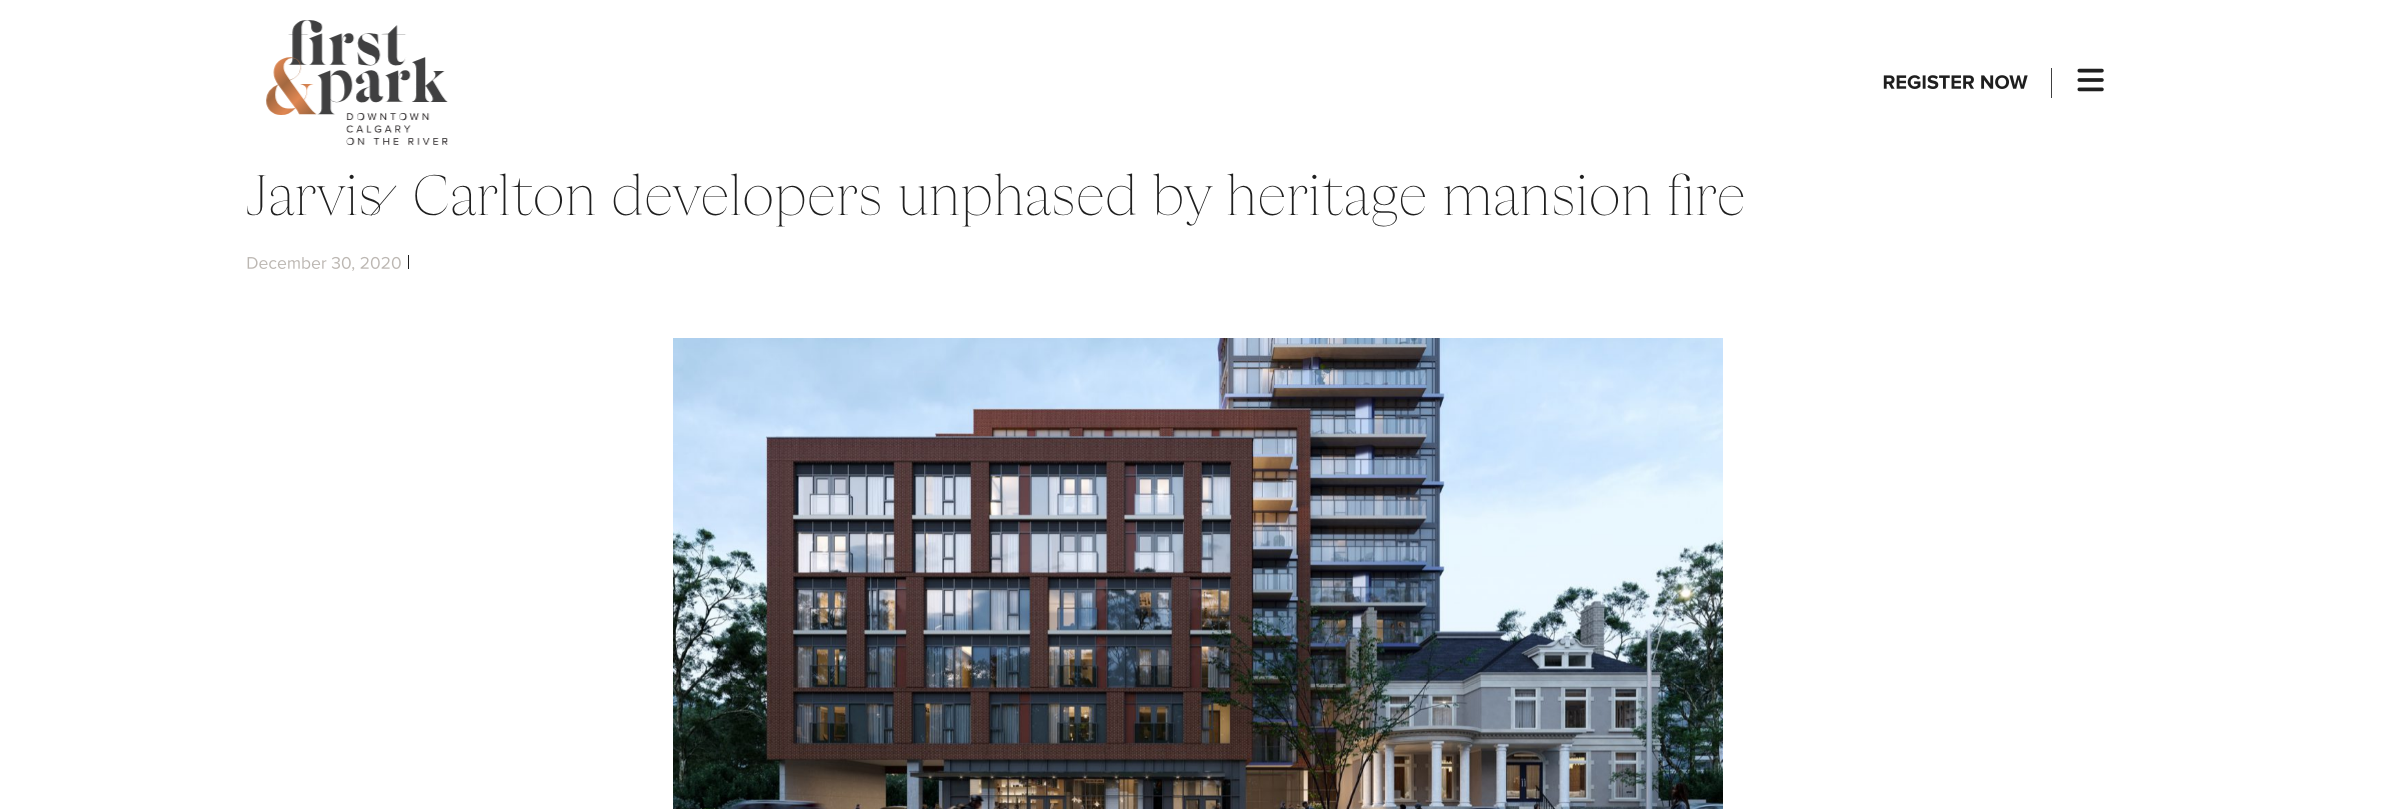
<svg xmlns="http://www.w3.org/2000/svg" width="2394" height="809" viewBox="0 0 2394 809">
  <rect width="100%" height="100%" fill="#fff"/>
  <image x="266" y="20" width="182" height="125" href="img/1.png"/>
  <image x="1883" y="75" width="145" height="14" href="img/2.png"/>
  <path d="M2051 68h1v30H2051z" fill="#404041"/>
  <image x="2077" y="68" width="27" height="24" href="img/3.png"/>
  <image x="247" y="256" width="154" height="15" href="img/4.png"/>
  <path d="M408 255h1v14H408z" fill="#1f1f1f"/>
  <image x="673" y="338" width="1050" height="471" href="img/5.png"/>
  <text x="246" y="215" font-family="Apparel" font-size="56.25" font-weight="300" fill="#1f1f1f">Jarvis ̸ Carlton developers unphased by heritage mansion fire</text>
</svg>
